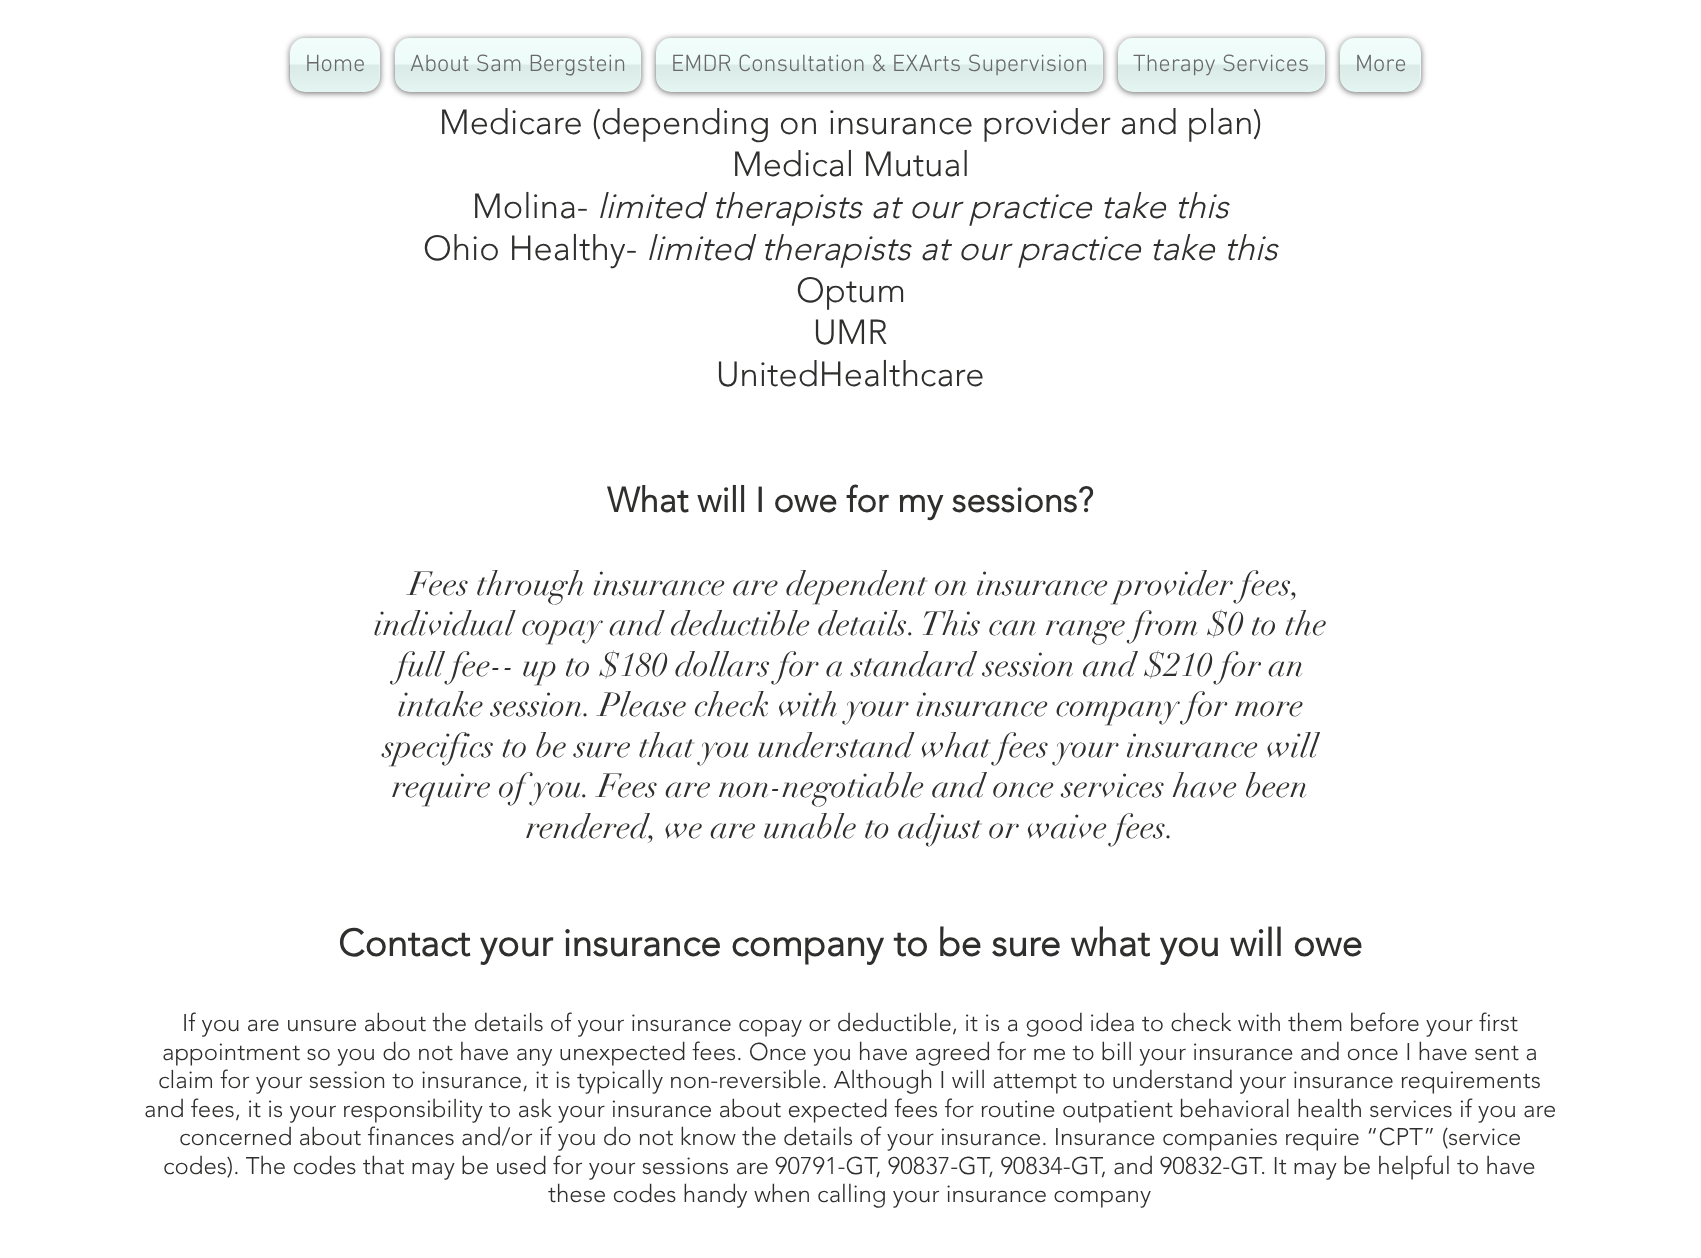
<svg xmlns="http://www.w3.org/2000/svg" width="1701" height="1258" viewBox="0 0 1701 1258">
  <rect width="100%" height="100%" fill="#fff"/>
  <rect x="290" y="39" width="90" height="54" rx="15" fill="#00000099" filter="blur(3px)"/>
  <rect x="290" y="38" width="90" height="54" rx="15" fill="#ebfcf9"/>
  <image x="289" y="38" width="91" height="54" href="img/1.png"/>
  <rect x="395" y="39" width="246" height="54" rx="15" fill="#00000099" filter="blur(3px)"/>
  <rect x="395" y="38" width="246" height="54" rx="15" fill="#ebfcf9"/>
  <image x="394" y="38" width="247" height="54" href="img/2.png"/>
  <rect x="656" y="39" width="447" height="54" rx="15" fill="#00000099" filter="blur(3px)"/>
  <rect x="656" y="38" width="447" height="54" rx="15" fill="#ebfcf9"/>
  <image x="655" y="38" width="448" height="54" href="img/3.png"/>
  <rect x="1118" y="39" width="207" height="54" rx="15" fill="#00000099" filter="blur(3px)"/>
  <rect x="1118" y="38" width="207" height="54" rx="15" fill="#ebfcf9"/>
  <image x="1117" y="38" width="208" height="54" href="img/4.png"/>
  <rect x="1340" y="39" width="81" height="54" rx="15" fill="#00000099" filter="blur(3px)"/>
  <rect x="1340" y="38" width="81" height="54" rx="15" fill="#ebfcf9"/>
  <image x="1339" y="38" width="81" height="54" href="img/5.png"/>
  <g font-family="'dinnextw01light'" font-size="24" font-weight="300" fill="#696969">
    <text x="305" y="71">Home</text>
    <text x="410" y="71">About Sam Bergstein</text>
    <text x="671" y="71">EMDR Consultation &amp; EXArts Supervision</text>
    <text x="1133" y="71">Therapy Services</text>
    <text x="1355" y="71">More</text>
  </g>
  <g font-family="'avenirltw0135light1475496'" font-size="34.5" font-weight="300" fill="#2f2f2e">
    <text x="439" y="134">Medicare (depending on insurance provider and plan)</text>
    <text x="732" y="176">Medical Mutual</text>
    <text x="472" y="218">Molina-</text>
  </g>
  <text x="597" y="218" font-family="'avenirltw0135light1475496'" font-size="34.5" font-weight="300" font-style="italic" fill="#2f2f2e">limited therapists at our practice take this</text>
  <text x="423" y="260" font-family="'avenirltw0135light1475496'" font-size="34.5" font-weight="300" fill="#2f2f2e">Ohio Healthy-</text>
  <text x="646" y="260" font-family="'avenirltw0135light1475496'" font-size="34.5" font-weight="300" font-style="italic" fill="#2f2f2e">limited therapists at our practice take this</text>
  <g font-family="'avenirltw0135light1475496'" font-size="34.5" font-weight="300" fill="#2f2f2e">
    <text x="796" y="302">Optum</text>
    <text x="813" y="344">UMR</text>
    <text x="716" y="386">UnitedHealthcare</text>
  </g>
  <text x="607" y="512" font-family="'avenirltw0135light1475496'" font-size="34.5" font-weight="bold" fill="#2f2f2e">What will I owe for my sessions?</text>
  <g font-family="didot" font-size="33" fill="#2f2f2e">
    <text x="409" y="595">Fees through insurance are dependent on insurance provider fees,</text>
    <text x="374" y="635">individual copay and deductible details. This can range from $0 to the</text>
    <text x="397" y="676">full fee-- up to $180 dollars for a standard session and $210 for an</text>
    <text x="398" y="716">intake session. Please check with your insurance company for more</text>
    <text x="383" y="757">specifics to be sure that you understand what fees your insurance will</text>
    <text x="392" y="797">require of you. Fees are non-negotiable and once services have been</text>
    <text x="526" y="838">rendered, we are unable to adjust or waive fees.</text>
  </g>
  <text x="338" y="956" font-family="'avenirltw0135light1475496'" font-size="37.5" font-weight="bold" fill="#2f2f2e">Contact your insurance company to be sure what you will owe</text>
  <g font-family="'avenirltw0135light1475496'" font-size="24" font-weight="300" fill="#2f2f2e">
    <text x="182" y="1031">If you are unsure about the details of your insurance copay or deductible, it is a good idea to check with them before your first</text>
    <text x="162" y="1060">appointment so you do not have any unexpected fees. Once you have agreed for me to bill your insurance and once I have sent a</text>
    <text x="158" y="1088">claim for your session to insurance, it is typically non-reversible. Although I will attempt to understand your insurance requirements</text>
    <text x="144" y="1117">and fees, it is your responsibility to ask your insurance about expected fees for routine outpatient behavioral health services if you are</text>
    <text x="179" y="1145">concerned about finances and/or if you do not know the details of your insurance. Insurance companies require “CPT” (service</text>
    <text x="163" y="1174">codes). The codes that may be used for your sessions are 90791-GT, 90837-GT, 90834-GT, and 90832-GT. It may be helpful to have</text>
    <text x="548" y="1202">these codes handy when calling your insurance company</text>
  </g>
</svg>
